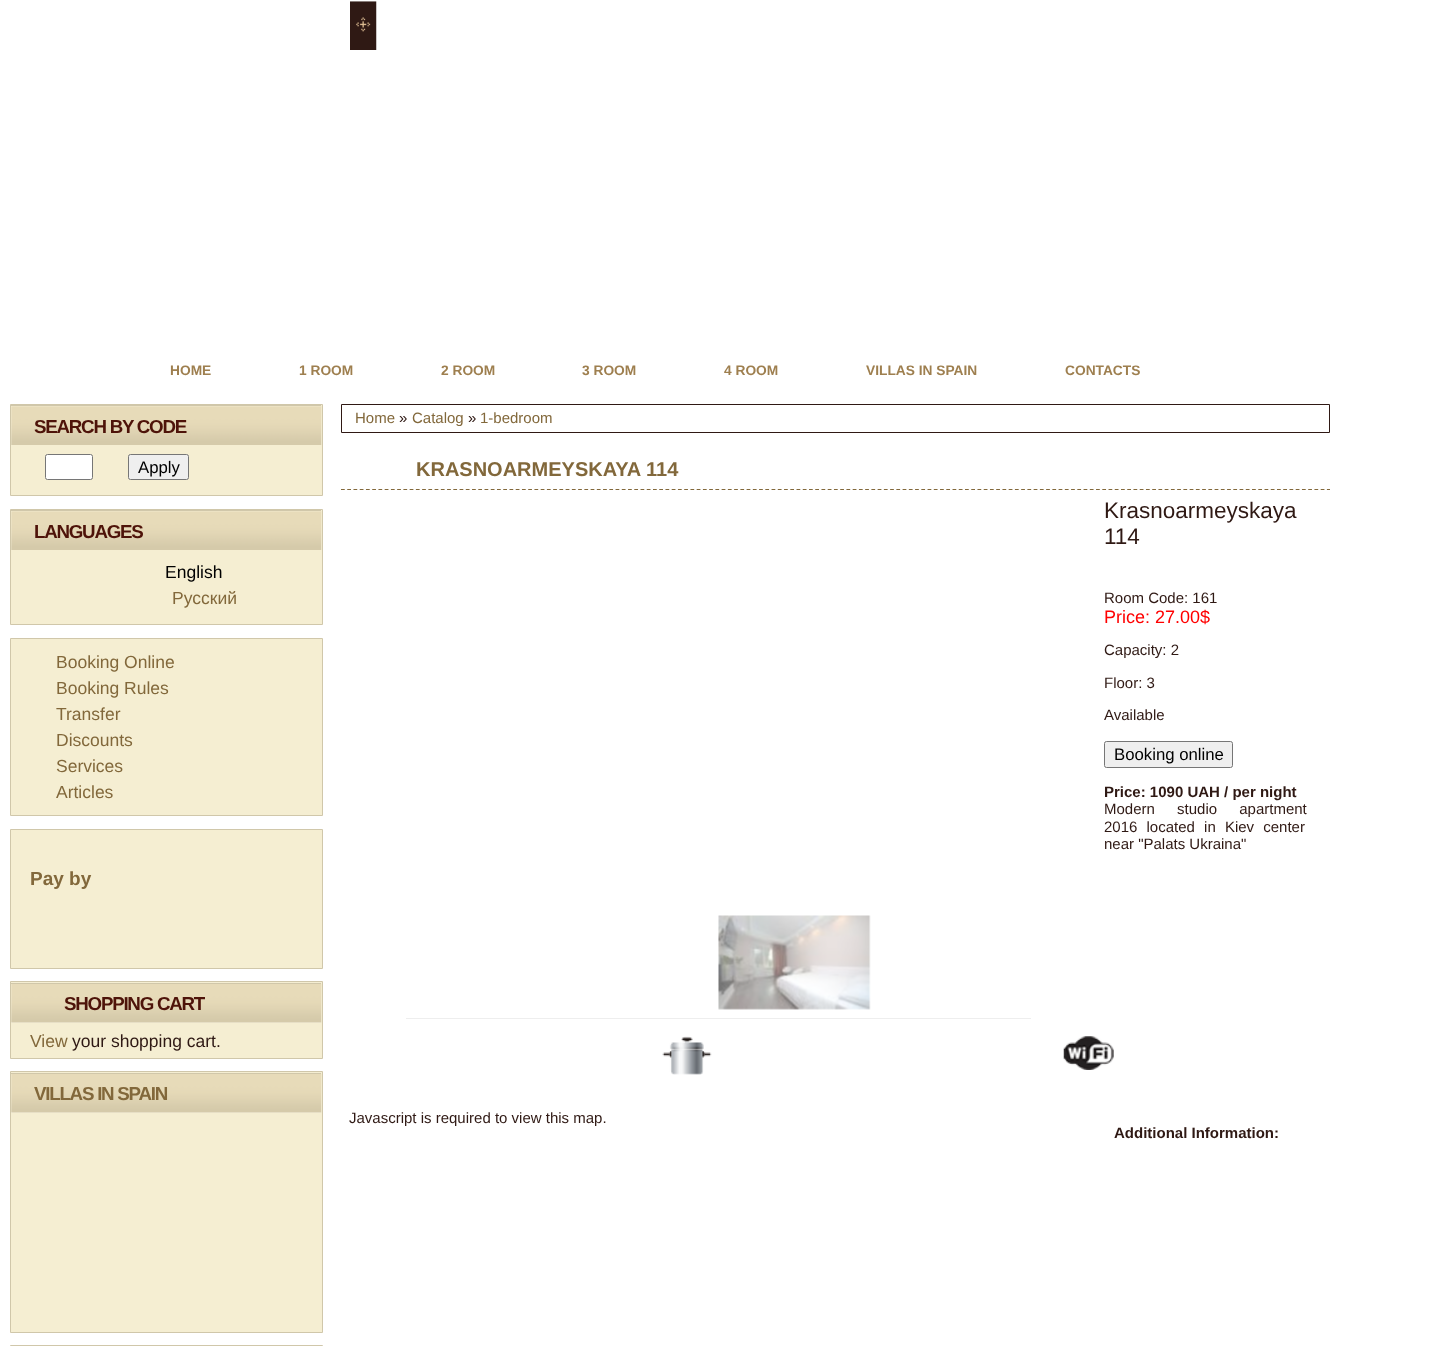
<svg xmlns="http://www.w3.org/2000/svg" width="1452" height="1346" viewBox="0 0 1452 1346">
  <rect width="100%" height="100%" fill="#fff"/>
  <image x="350" y="1" width="27" height="49" href="img/1.png"/>
  <path d="M10.5 404.5h312v91H10.5z" fill="#f5eed2" stroke="#d0c7aa"/>
  <path d="M11 406h310v39H11z" fill="#f8f4e2"/>
  <image x="11" y="406" width="311" height="39" href="img/2.png"/>
  <path d="M11 405h310v1H11z" fill="#d0c7aa"/>
  <rect x="45.5" y="454.5" width="47" height="25" rx="2" fill="#fff" stroke="#767676"/>
  <rect x="128.5" y="454.5" width="60" height="25" rx="2" fill="#efefef" stroke="#767676"/>
  <path d="M10.5 509.5h312v115H10.5z" fill="#f5eed2" stroke="#d0c7aa"/>
  <path d="M11 511h310v39H11z" fill="#f8f4e2"/>
  <image x="11" y="511" width="311" height="39" href="img/2.png"/>
  <path d="M11 510h310v1H11z" fill="#d0c7aa"/>
  <path d="M10.5 638.5h312v177H10.5z" fill="#f5eed2" stroke="#d0c7aa"/>
  <path d="M10.5 829.5h312v139H10.5z" fill="#f5eed2" stroke="#d0c7aa"/>
  <path d="M10.5 981.5h312v77H10.5z" fill="#f5eed2" stroke="#d0c7aa"/>
  <path d="M11 984h310v39H11z" fill="#f8f4e2"/>
  <image x="11" y="983" width="311" height="40" href="img/3.png"/>
  <path d="M11 983h310v1H11z" fill="#d0c7aa"/>
  <path d="M10.5 1071.5h312v261H10.5z" fill="#f5eed2" stroke="#d0c7aa"/>
  <path d="M11 1074h310v39H11z" fill="#f8f4e2"/>
  <image x="11" y="1073" width="311" height="40" href="img/4.png"/>
  <path d="M11 1073h310v1H11z" fill="#d0c7aa"/>
  <path d="M10.5 1345.5h312v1H10.5z" fill="none" stroke="#d0c7aa"/>
  <path d="M341.5 404.5h988v28H341.5z" fill="none" stroke="#2f1914"/>
  <path d="M341 489.5H1330" fill="none" stroke="#82683b" stroke-width="1.2" stroke-dasharray="3.75 2.49"/>
  <rect x="1104.5" y="741.5" width="128" height="26" rx="2" fill="#efefef" stroke="#767676"/>
  <path d="M406 1018h625v1H406z" fill="#eee"/>
  <image x="718" y="915" width="153" height="95" href="img/5.png"/>
  <image x="662" y="1036" width="50" height="39" href="img/6.png"/>
  <image x="1063" y="1036" width="51" height="34" href="img/7.png"/>
  <g font-family="Liberation Sans" font-size="13.75" font-weight="bold" fill="#9e7f4f">
    <text x="170" y="375">HOME</text>
    <text x="299" y="375">1 ROOM</text>
    <text x="441" y="375">2 ROOM</text>
    <text x="582" y="375">3 ROOM</text>
    <text x="724" y="375">4 ROOM</text>
    <text x="866" y="375">VILLAS IN SPAIN</text>
    <text x="1065" y="375">CONTACTS</text>
  </g>
  <text x="34" y="433" font-family="Liberation Sans" font-size="18.75" font-weight="bold" letter-spacing="-1.25" fill="#4e1309">SEARCH BY CODE</text>
  <text x="138" y="473" font-family="Liberation Sans" font-size="16.75" fill="#000">Apply</text>
  <text x="34" y="538" font-family="Liberation Sans" font-size="18.75" font-weight="bold" letter-spacing="-1.25" fill="#4e1309">LANGUAGES</text>
  <text x="165" y="578" font-family="Liberation Sans" font-size="17.5" fill="#000">English</text>
  <g font-family="Liberation Sans" font-size="17.5" fill="#82683b">
    <text x="172" y="604">Русский</text>
    <text x="56" y="668">Booking Online</text>
    <text x="56" y="694">Booking Rules</text>
    <text x="56" y="720">Transfer</text>
    <text x="56" y="746">Discounts</text>
    <text x="56" y="772">Services</text>
    <text x="56" y="798">Articles</text>
  </g>
  <text x="30" y="885" font-family="Liberation Sans" font-size="19" font-weight="bold" fill="#82683b">Pay by</text>
  <text x="64" y="1010" font-family="Liberation Sans" font-size="18.75" font-weight="bold" letter-spacing="-1.25" fill="#4e1309">SHOPPING CART</text>
  <text x="30" y="1047" font-family="Liberation Sans" font-size="17.5" fill="#82683b">View</text>
  <text x="72" y="1047" font-family="Liberation Sans" font-size="17.5" fill="#2f1914">your shopping cart.</text>
  <text x="34" y="1100" font-family="Liberation Sans" font-size="18.75" font-weight="bold" letter-spacing="-1.25" fill="#82683b">VILLAS IN SPAIN</text>
  <text x="355" y="423" font-family="Liberation Sans" font-size="15" fill="#82683b">Home</text>
  <text x="399" y="423" font-family="Liberation Sans" font-size="15" fill="#2f1914">»</text>
  <text x="412" y="423" font-family="Liberation Sans" font-size="15" fill="#82683b">Catalog</text>
  <text x="468" y="423" font-family="Liberation Sans" font-size="15" fill="#2f1914">»</text>
  <text x="480" y="423" font-family="Liberation Sans" font-size="15" fill="#82683b">1-bedroom</text>
  <text x="416" y="476" font-family="Liberation Sans" font-size="20" font-weight="bold" fill="#82683b">KRASNOARMEYSKAYA 114</text>
  <g font-family="Liberation Sans" font-size="22.5" fill="#2f1914">
    <text x="1104" y="518">Krasnoarmeyskaya</text>
    <text x="1104" y="544">114</text>
  </g>
  <text x="1104" y="603" font-family="Liberation Sans" font-size="15" fill="#2f1914">Room Code: 161</text>
  <text x="1104" y="623" font-family="Liberation Sans" font-size="18" fill="#f00">Price: 27.00$</text>
  <g font-family="Liberation Sans" font-size="15" fill="#2f1914">
    <text x="1104" y="655">Capacity: 2</text>
    <text x="1104" y="688">Floor: 3</text>
    <text x="1104" y="720">Available</text>
  </g>
  <text x="1114" y="760" font-family="Liberation Sans" font-size="16.75" fill="#000">Booking online</text>
  <text x="1104" y="797" font-family="Liberation Sans" font-size="15" font-weight="bold" fill="#2f1914">Price: 1090 UAH / per night</text>
  <g font-family="Liberation Sans" font-size="15" fill="#2f1914">
    <text x="1104" y="814" word-spacing="18">Modern studio apartment</text>
    <text x="1104" y="832" word-spacing="5">2016 located in Kiev center</text>
    <text x="1104" y="849">near "Palats Ukraina"</text>
    <text x="349" y="1123">Javascript is required to view this map.</text>
  </g>
  <text x="1114" y="1138" font-family="Liberation Sans" font-size="15" font-weight="bold" fill="#2f1914">Additional Information:</text>
</svg>
